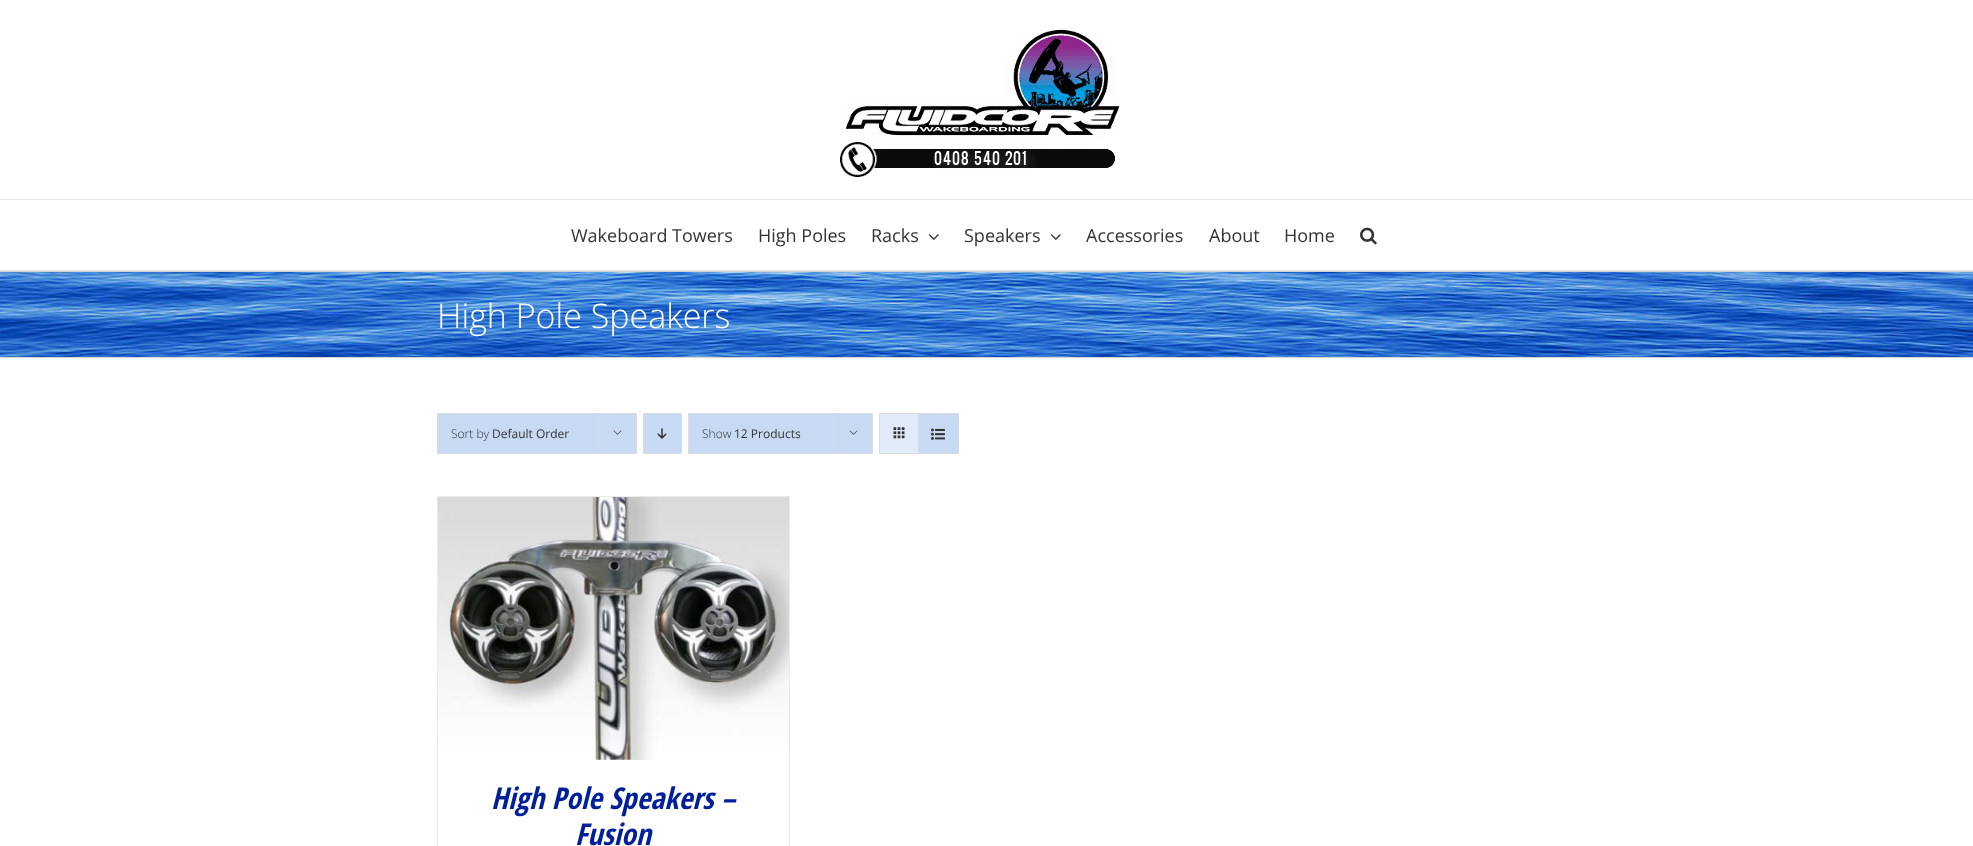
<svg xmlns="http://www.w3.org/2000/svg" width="1973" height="846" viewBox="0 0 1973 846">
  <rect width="100%" height="100%" fill="#fff"/>
  <path d="M0 199h1973v1H0z" fill="#e5e5e5"/>
  <image x="840" y="29" width="280" height="148" href="img/1.png"/>
  <path d="M0 270h1973v1H0z" fill="#e5e5e5"/>
  <image x="928" y="234" width="11" height="6" href="img/2.png"/>
  <image x="1050" y="234" width="11" height="6" href="img/2.png"/>
  <image x="1360" y="227" width="17" height="18" href="img/3.png"/>
  <image x="0" y="272" width="1973" height="85" href="img/4.png"/>
  <path d="M0 271h1973v1H0z" fill="#d2d3d4"/>
  <path d="M0 357h1973v1H0z" fill="#d2d3d4"/>
  <path d="M437.5 413.5h199v40H437.5z" fill="#c8d9f4" stroke="#dbdbdb"/>
  <path d="M597 413h1v39H597z" fill="#dbdbdb"/>
  <image x="613" y="430" width="9" height="5" href="img/5.png"/>
  <path d="M643.5 413.5h38v40H643.5z" fill="#c8d9f4" stroke="#dbdbdb"/>
  <image x="657" y="428" width="10" height="11" href="img/6.png"/>
  <path d="M688.5 413.5h184v40H688.5z" fill="#c8d9f4" stroke="#dbdbdb"/>
  <path d="M833 413h1v39H833z" fill="#dbdbdb"/>
  <image x="849" y="430" width="9" height="5" href="img/5.png"/>
  <path d="M879.5 413.5h79v40H879.5z" fill="none" stroke="#dbdbdb"/>
  <path d="M880 414h38v39H880z" fill="#e1eaf9"/>
  <path d="M918 414h1v39H918z" fill="#dbdbdb"/>
  <image x="893" y="427" width="12" height="12" href="img/7.png"/>
  <path d="M919 414h39v39H919z" fill="#c8d9f4"/>
  <image x="931" y="428" width="14" height="12" href="img/8.png"/>
  <path d="M437 496h353v1H437z" fill="#ebeaea"/>
  <path d="M789 496h1v350H789z" fill="#ebeaea"/>
  <path d="M437 496h1v350H437z" fill="#ebeaea"/>
  <image x="438" y="497" width="351" height="263" href="img/9.png"/>
  <g font-family="Open Sans" font-size="18" fill="#333">
    <text x="571" y="242">Wakeboard Towers</text>
    <text x="758" y="242">High Poles</text>
    <text x="871" y="242">Racks</text>
    <text x="964" y="242">Speakers</text>
    <text x="1086" y="242">Accessories</text>
    <text x="1209" y="242">About</text>
    <text x="1284" y="242">Home</text>
  </g>
  <text x="437" y="328" font-family="Open Sans" font-size="34" font-weight="300" fill="#fff">High Pole Speakers</text>
  <text x="451" y="438" font-family="Open Sans" font-size="12" font-weight="300" fill="#333">Sort by</text>
  <text x="492" y="438" font-family="Open Sans" font-size="12" fill="#333">Default Order</text>
  <text x="702" y="438" font-family="Open Sans" font-size="12" font-weight="300" fill="#333">Show</text>
  <text x="734" y="438" font-family="Open Sans" font-size="12" fill="#333">12 Products</text>
  <g font-family="Open Sans Condensed" font-size="30" font-weight="bold" font-style="italic" fill="#001f9b">
    <text x="491" y="809">High Pole Speakers –</text>
    <text x="575" y="845">Fusion</text>
  </g>
</svg>
